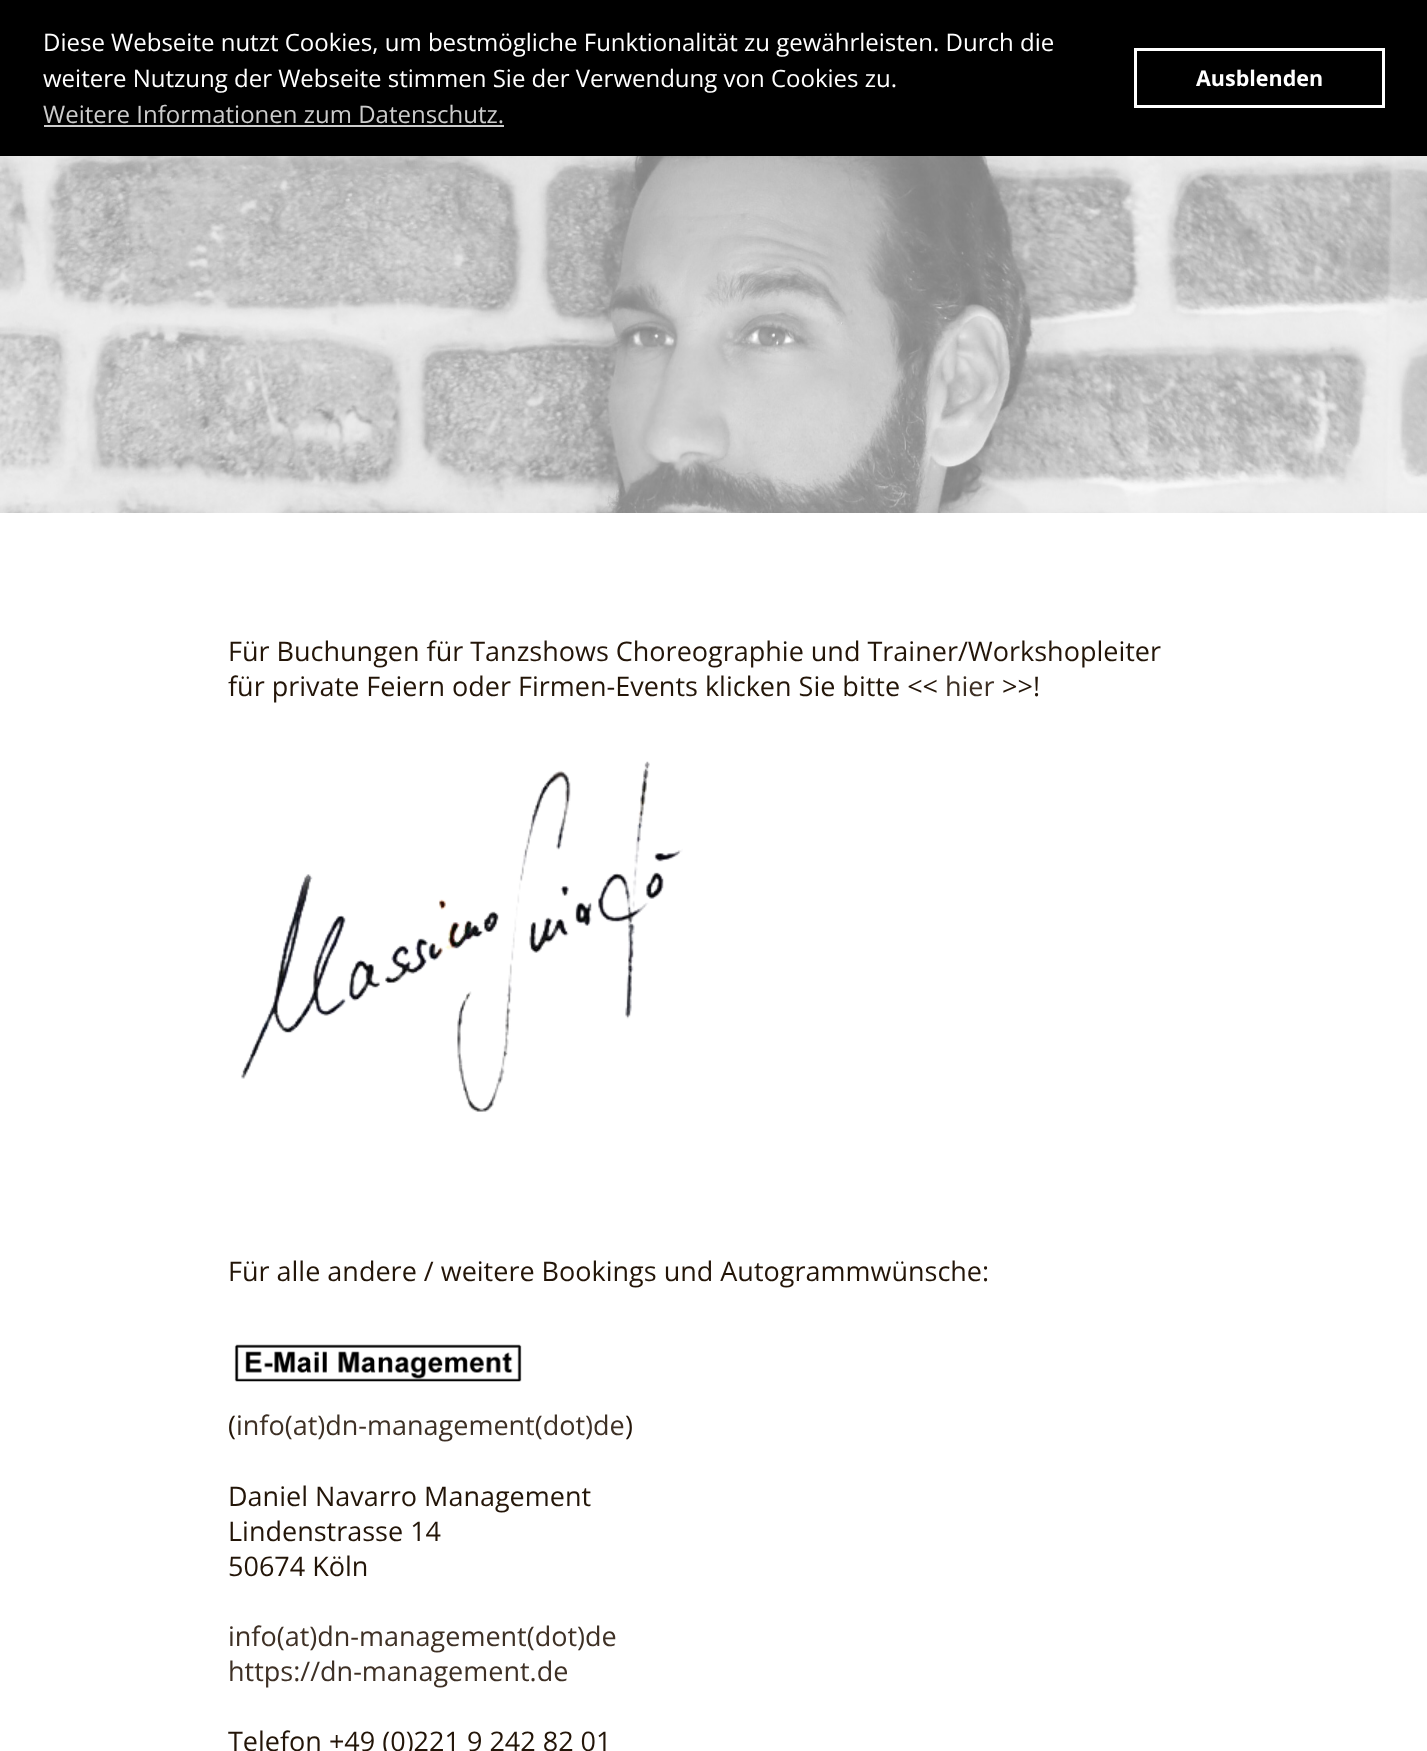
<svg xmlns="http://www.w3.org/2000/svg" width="1427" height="1751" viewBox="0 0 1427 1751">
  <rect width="100%" height="100%" fill="#fff"/>
  <path d="M0 0h1427v156H0z" fill="#000"/>
  <path d="M44 125h460v2H44z" fill="#ccc"/>
  <path d="M1135.5 49.5h248v57H1135.5z" fill="none" stroke="#fff" stroke-width="3"/>
  <image x="0" y="156" width="1427" height="357" href="img/1.png"/>
  <image x="0" y="156" width="1427" height="357" href="img/2.png"/>
  <image x="241" y="761" width="442" height="351" href="img/3.png"/>
  <image x="234" y="1344" width="288" height="38" href="img/4.png"/>
  <g font-family="Open Sans" font-size="24" fill="#fff">
    <text x="43" y="51">Diese Webseite nutzt Cookies, um bestmögliche Funktionalität zu gewährleisten. Durch die</text>
    <text x="43" y="87">weitere Nutzung der Webseite stimmen Sie der Verwendung von Cookies zu.</text>
  </g>
  <text x="43" y="123" font-family="Open Sans" font-size="24" fill="#ccc">Weitere Informationen zum Datenschutz.</text>
  <text x="1196" y="86" font-family="Open Sans" font-size="21.5" font-weight="bold" fill="#fff">Ausblenden</text>
  <g font-family="Open Sans" font-size="27" fill="#231508">
    <text x="228" y="661">Für Buchungen für Tanzshows Choreographie und Trainer/Workshopleiter</text>
    <text x="228" y="696">für private Feiern oder Firmen-Events klicken Sie bitte &lt;&lt;</text>
  </g>
  <text x="945" y="696" font-family="Open Sans" font-size="27" fill="#3e3025">hier</text>
  <g font-family="Open Sans" font-size="27" fill="#231508">
    <text x="1002" y="696">&gt;&gt;!</text>
    <text x="228" y="1281">Für alle andere / weitere Bookings und Autogrammwünsche:</text>
    <text x="228" y="1435">(</text>
  </g>
  <text x="236" y="1435" font-family="Open Sans" font-size="27" fill="#3e3025">info(at)dn-management(dot)de</text>
  <g font-family="Open Sans" font-size="27" fill="#231508">
    <text x="625" y="1435">)</text>
    <text x="228" y="1506">Daniel Navarro Management</text>
    <text x="228" y="1541">Lindenstrasse 14</text>
    <text x="228" y="1576">50674 Köln</text>
  </g>
  <g font-family="Open Sans" font-size="27" fill="#3e3025">
    <text x="228" y="1646">info(at)dn-management(dot)de</text>
    <text x="228" y="1681">https://dn-management.de</text>
  </g>
  <text x="228" y="1751" font-family="Open Sans" font-size="27" fill="#231508">Telefon +49 (0)221 9 242 82 01</text>
</svg>
